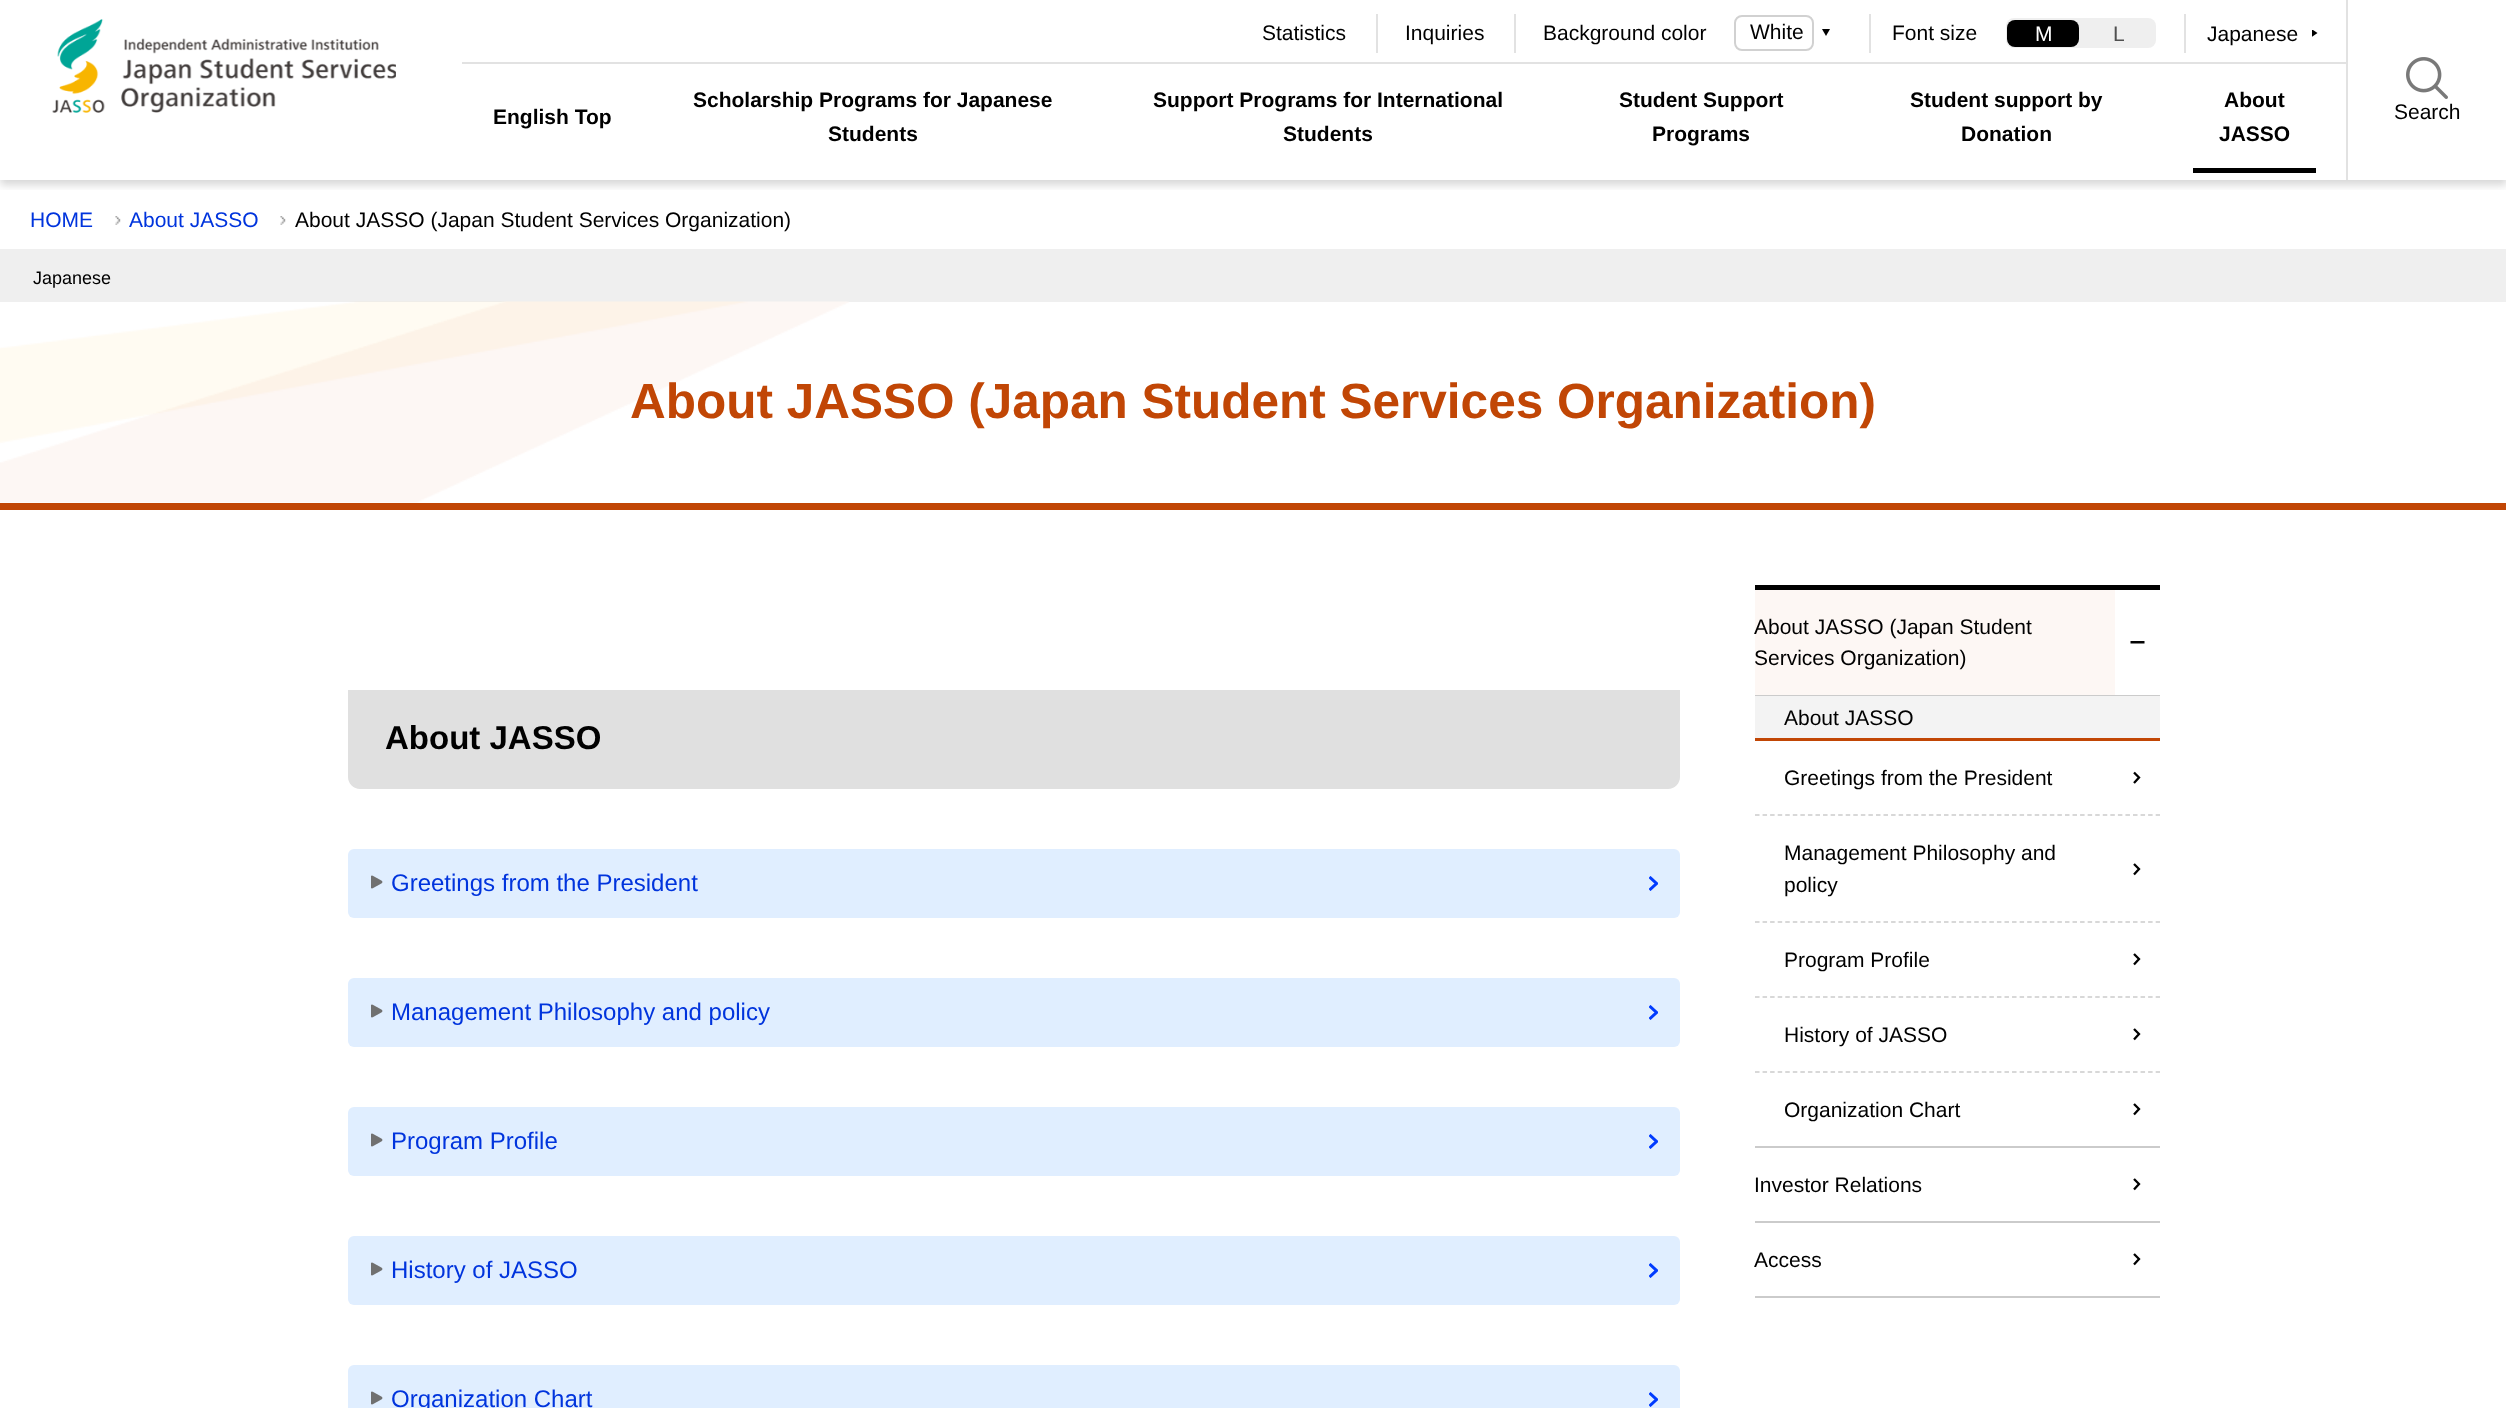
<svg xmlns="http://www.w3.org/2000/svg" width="2506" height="1408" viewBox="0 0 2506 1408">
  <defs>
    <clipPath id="clip1"><path d="M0 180h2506v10H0z"/></clipPath>
    <clipPath id="clip2"><path d="M2312 30h6v8H2312z"/></clipPath>
    <clipPath id="clip3"><path d="M1649 876h9v15H1649z"/></clipPath>
    <clipPath id="clip4"><path d="M1649 1005h9v15H1649z"/></clipPath>
    <clipPath id="clip5"><path d="M1649 1134h9v15H1649z"/></clipPath>
    <clipPath id="clip6"><path d="M1649 1263h9v15H1649z"/></clipPath>
    <clipPath id="clip7"><path d="M1649 1392h9v15H1649z"/></clipPath>
    <clipPath id="clip8"><path d="M2130 641h15v3H2130z"/></clipPath>
  </defs>
  <rect width="100%" height="100%" fill="#fff"/>
  <g clip-path="url(#clip1)">
    <path d="M0 5h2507v180H0z" fill="#00000029" filter="blur(4.5px)"/>
  </g>
  <image x="52" y="19" width="344" height="94" href="img/1.png"/>
  <path d="M1376 14h2v39H1376z" fill="#e2e2e2"/>
  <path d="M1514 14h2v39H1514z" fill="#e2e2e2"/>
  <rect x="1735" y="16" width="78" height="34" rx="7" fill="none" stroke="#d1d1d1" stroke-width="2"/>
  <path d="M1826 36L1822 29H1830Z" fill="#000"/>
  <path d="M1869 14h2v39H1869z" fill="#e2e2e2"/>
  <rect x="2006" y="18" width="150" height="30" rx="8" fill="#efefef"/>
  <rect x="2007" y="20" width="72" height="27" rx="8" fill="#000"/>
  <path d="M2184 14h2v39H2184z" fill="#e2e2e2"/>
  <g clip-path="url(#clip2)">
    <path d="M2317.5 33L2311.5 37V29Z" fill="#000"/>
  </g>
  <path d="M462 62h1884v2H462z" fill="#e2e2e2"/>
  <path d="M2193 168h123v5H2193z" fill="#000"/>
  <path d="M2346 0h2v180H2346z" fill="#e2e2e2"/>
  <image x="2406" y="57" width="42" height="42" href="img/2.png"/>
  <image x="115" y="216" width="6" height="9" href="img/3.png"/>
  <image x="280" y="216" width="6" height="9" href="img/4.png"/>
  <path d="M0 249h2506v53H0z" fill="#efefef"/>
  <path d="M0 503h2506v7H0z" fill="#c14605"/>
  <image x="0" y="301" width="849" height="202" href="img/5.png"/>
  <path d="M348 690H1680V777C1680 783.5 1674.5 789 1668 789H360C353.5 789 348 783.5 348 777Z" fill="#e0e0e0"/>
  <rect x="348" y="849" width="1332" height="69" rx="6" fill="#e0eeff"/>
  <image x="371" y="875" width="12" height="14" href="img/6.png"/>
  <g clip-path="url(#clip3)">
    <path d="M1649.5 877L1656.5 883.5L1649.5 890" fill="none" stroke="#003bff" stroke-width="3"/>
  </g>
  <rect x="348" y="978" width="1332" height="69" rx="6" fill="#e0eeff"/>
  <image x="371" y="1004" width="12" height="14" href="img/6.png"/>
  <g clip-path="url(#clip4)">
    <path d="M1649.5 1006L1656.5 1012.5L1649.5 1019" fill="none" stroke="#003bff" stroke-width="3"/>
  </g>
  <rect x="348" y="1107" width="1332" height="69" rx="6" fill="#e0eeff"/>
  <image x="371" y="1133" width="12" height="14" href="img/6.png"/>
  <g clip-path="url(#clip5)">
    <path d="M1649.5 1135L1656.5 1141.5L1649.5 1148" fill="none" stroke="#003bff" stroke-width="3"/>
  </g>
  <rect x="348" y="1236" width="1332" height="69" rx="6" fill="#e0eeff"/>
  <image x="371" y="1262" width="12" height="14" href="img/6.png"/>
  <g clip-path="url(#clip6)">
    <path d="M1649.5 1264L1656.5 1270.5L1649.5 1277" fill="none" stroke="#003bff" stroke-width="3"/>
  </g>
  <rect x="348" y="1365" width="1332" height="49" rx="6" fill="#e0eeff"/>
  <image x="371" y="1391" width="12" height="14" href="img/6.png"/>
  <g clip-path="url(#clip7)">
    <path d="M1649.5 1393L1656.5 1399.5L1649.5 1406" fill="none" stroke="#003bff" stroke-width="3"/>
  </g>
  <path d="M1755 585h405v5H1755z" fill="#000"/>
  <path d="M1755 1146h405v2H1755z" fill="#cbcbcb"/>
  <path d="M1755 590h360v105H1755z" fill="#fdf7f4"/>
  <g clip-path="url(#clip8)">
    <path d="M2132 642H2143" fill="none" stroke="#030303" stroke-width="3" stroke-linecap="square"/>
  </g>
  <path d="M1755 695h405v1H1755z" fill="#cbcbcb"/>
  <path d="M1755 696h405v42H1755z" fill="#f3f3f3"/>
  <path d="M1755 738h405v3H1755z" fill="#c14605"/>
  <path d="M1755 815H2160" fill="none" stroke="#cbcbcb" stroke-width="1.5" stroke-dasharray="4.5 3.06"/>
  <path d="M2134 772.5L2139 777.5L2134 783" fill="none" stroke="#000" stroke-width="2.3"/>
  <path d="M1755 922H2160" fill="none" stroke="#cbcbcb" stroke-width="1.5" stroke-dasharray="4.5 3.06"/>
  <path d="M2134 864L2139 869L2134 874.5" fill="none" stroke="#000" stroke-width="2.3"/>
  <path d="M1755 997H2160" fill="none" stroke="#cbcbcb" stroke-width="1.5" stroke-dasharray="4.5 3.06"/>
  <path d="M2134 954L2139 959L2134 964.5" fill="none" stroke="#000" stroke-width="2.3"/>
  <path d="M1755 1072H2160" fill="none" stroke="#cbcbcb" stroke-width="1.5" stroke-dasharray="4.5 3.06"/>
  <path d="M2134 1029L2139 1034L2134 1039.5" fill="none" stroke="#000" stroke-width="2.3"/>
  <path d="M2134 1104L2139 1109L2134 1114.5" fill="none" stroke="#000" stroke-width="2.3"/>
  <path d="M1755 1221h405v2H1755z" fill="#cbcbcb"/>
  <path d="M2134 1179L2139 1184L2134 1189.5" fill="none" stroke="#000" stroke-width="2.3"/>
  <path d="M1755 1296h405v2H1755z" fill="#cbcbcb"/>
  <path d="M2134 1254L2139 1259L2134 1264.5" fill="none" stroke="#000" stroke-width="2.3"/>
  <g font-family="Liberation Sans" font-size="21" fill="#000">
    <text x="1262" y="40">Statistics</text>
    <text x="1405" y="40">Inquiries</text>
    <text x="1543" y="40">Background color</text>
    <text x="1750" y="39">White</text>
    <text x="1892" y="40">Font size</text>
  </g>
  <text x="2035" y="41" font-family="Liberation Sans" font-size="21" fill="#fff">M</text>
  <text x="2113" y="41" font-family="Liberation Sans" font-size="21" fill="#505050">L</text>
  <text x="2207" y="41" font-family="Liberation Sans" font-size="21" fill="#000">Japanese</text>
  <g font-family="Liberation Sans" font-size="21" font-weight="bold" fill="#000">
    <text x="493" y="124">English Top</text>
    <text x="693" y="107">Scholarship Programs for Japanese</text>
    <text x="828" y="141">Students</text>
    <text x="1153" y="107">Support Programs for International</text>
    <text x="1283" y="141">Students</text>
    <text x="1619" y="107">Student Support</text>
    <text x="1652" y="141">Programs</text>
    <text x="1910" y="107">Student support by</text>
    <text x="1961" y="141">Donation</text>
    <text x="2224" y="107">About</text>
    <text x="2219" y="141">JASSO</text>
  </g>
  <text x="2394" y="119" font-family="Liberation Sans" font-size="21" fill="#000">Search</text>
  <g font-family="Liberation Sans" font-size="21" fill="#0034dd">
    <text x="30" y="227">HOME</text>
    <text x="129" y="227">About JASSO</text>
  </g>
  <text x="295" y="227" font-family="Liberation Sans" font-size="21" fill="#000">About JASSO (Japan Student Services Organization)</text>
  <text x="33" y="284" font-family="Liberation Sans" font-size="18" fill="#000">Japanese</text>
  <text x="630" y="418" font-family="Liberation Sans" font-size="49.5" font-weight="bold" fill="#c14605">About JASSO (Japan Student Services Organization)</text>
  <text x="385" y="749" font-family="Liberation Sans" font-size="33" font-weight="bold" fill="#000">About JASSO</text>
  <g font-family="Liberation Sans" font-size="24" fill="#0034dd">
    <text x="391" y="891">Greetings from the President</text>
    <text x="391" y="1020">Management Philosophy and policy</text>
    <text x="391" y="1149">Program Profile</text>
    <text x="391" y="1278">History of JASSO</text>
    <text x="391" y="1407">Organization Chart</text>
  </g>
  <g font-family="Liberation Sans" font-size="21" fill="#000">
    <text x="1754" y="634">About JASSO (Japan Student</text>
    <text x="1754" y="665">Services Organization)</text>
    <text x="1784" y="725">About JASSO</text>
    <text x="1784" y="785">Greetings from the President</text>
    <text x="1784" y="860">Management Philosophy and</text>
    <text x="1784" y="892">policy</text>
    <text x="1784" y="967">Program Profile</text>
    <text x="1784" y="1042">History of JASSO</text>
    <text x="1784" y="1117">Organization Chart</text>
    <text x="1754" y="1192">Investor Relations</text>
    <text x="1754" y="1267">Access</text>
  </g>
</svg>
